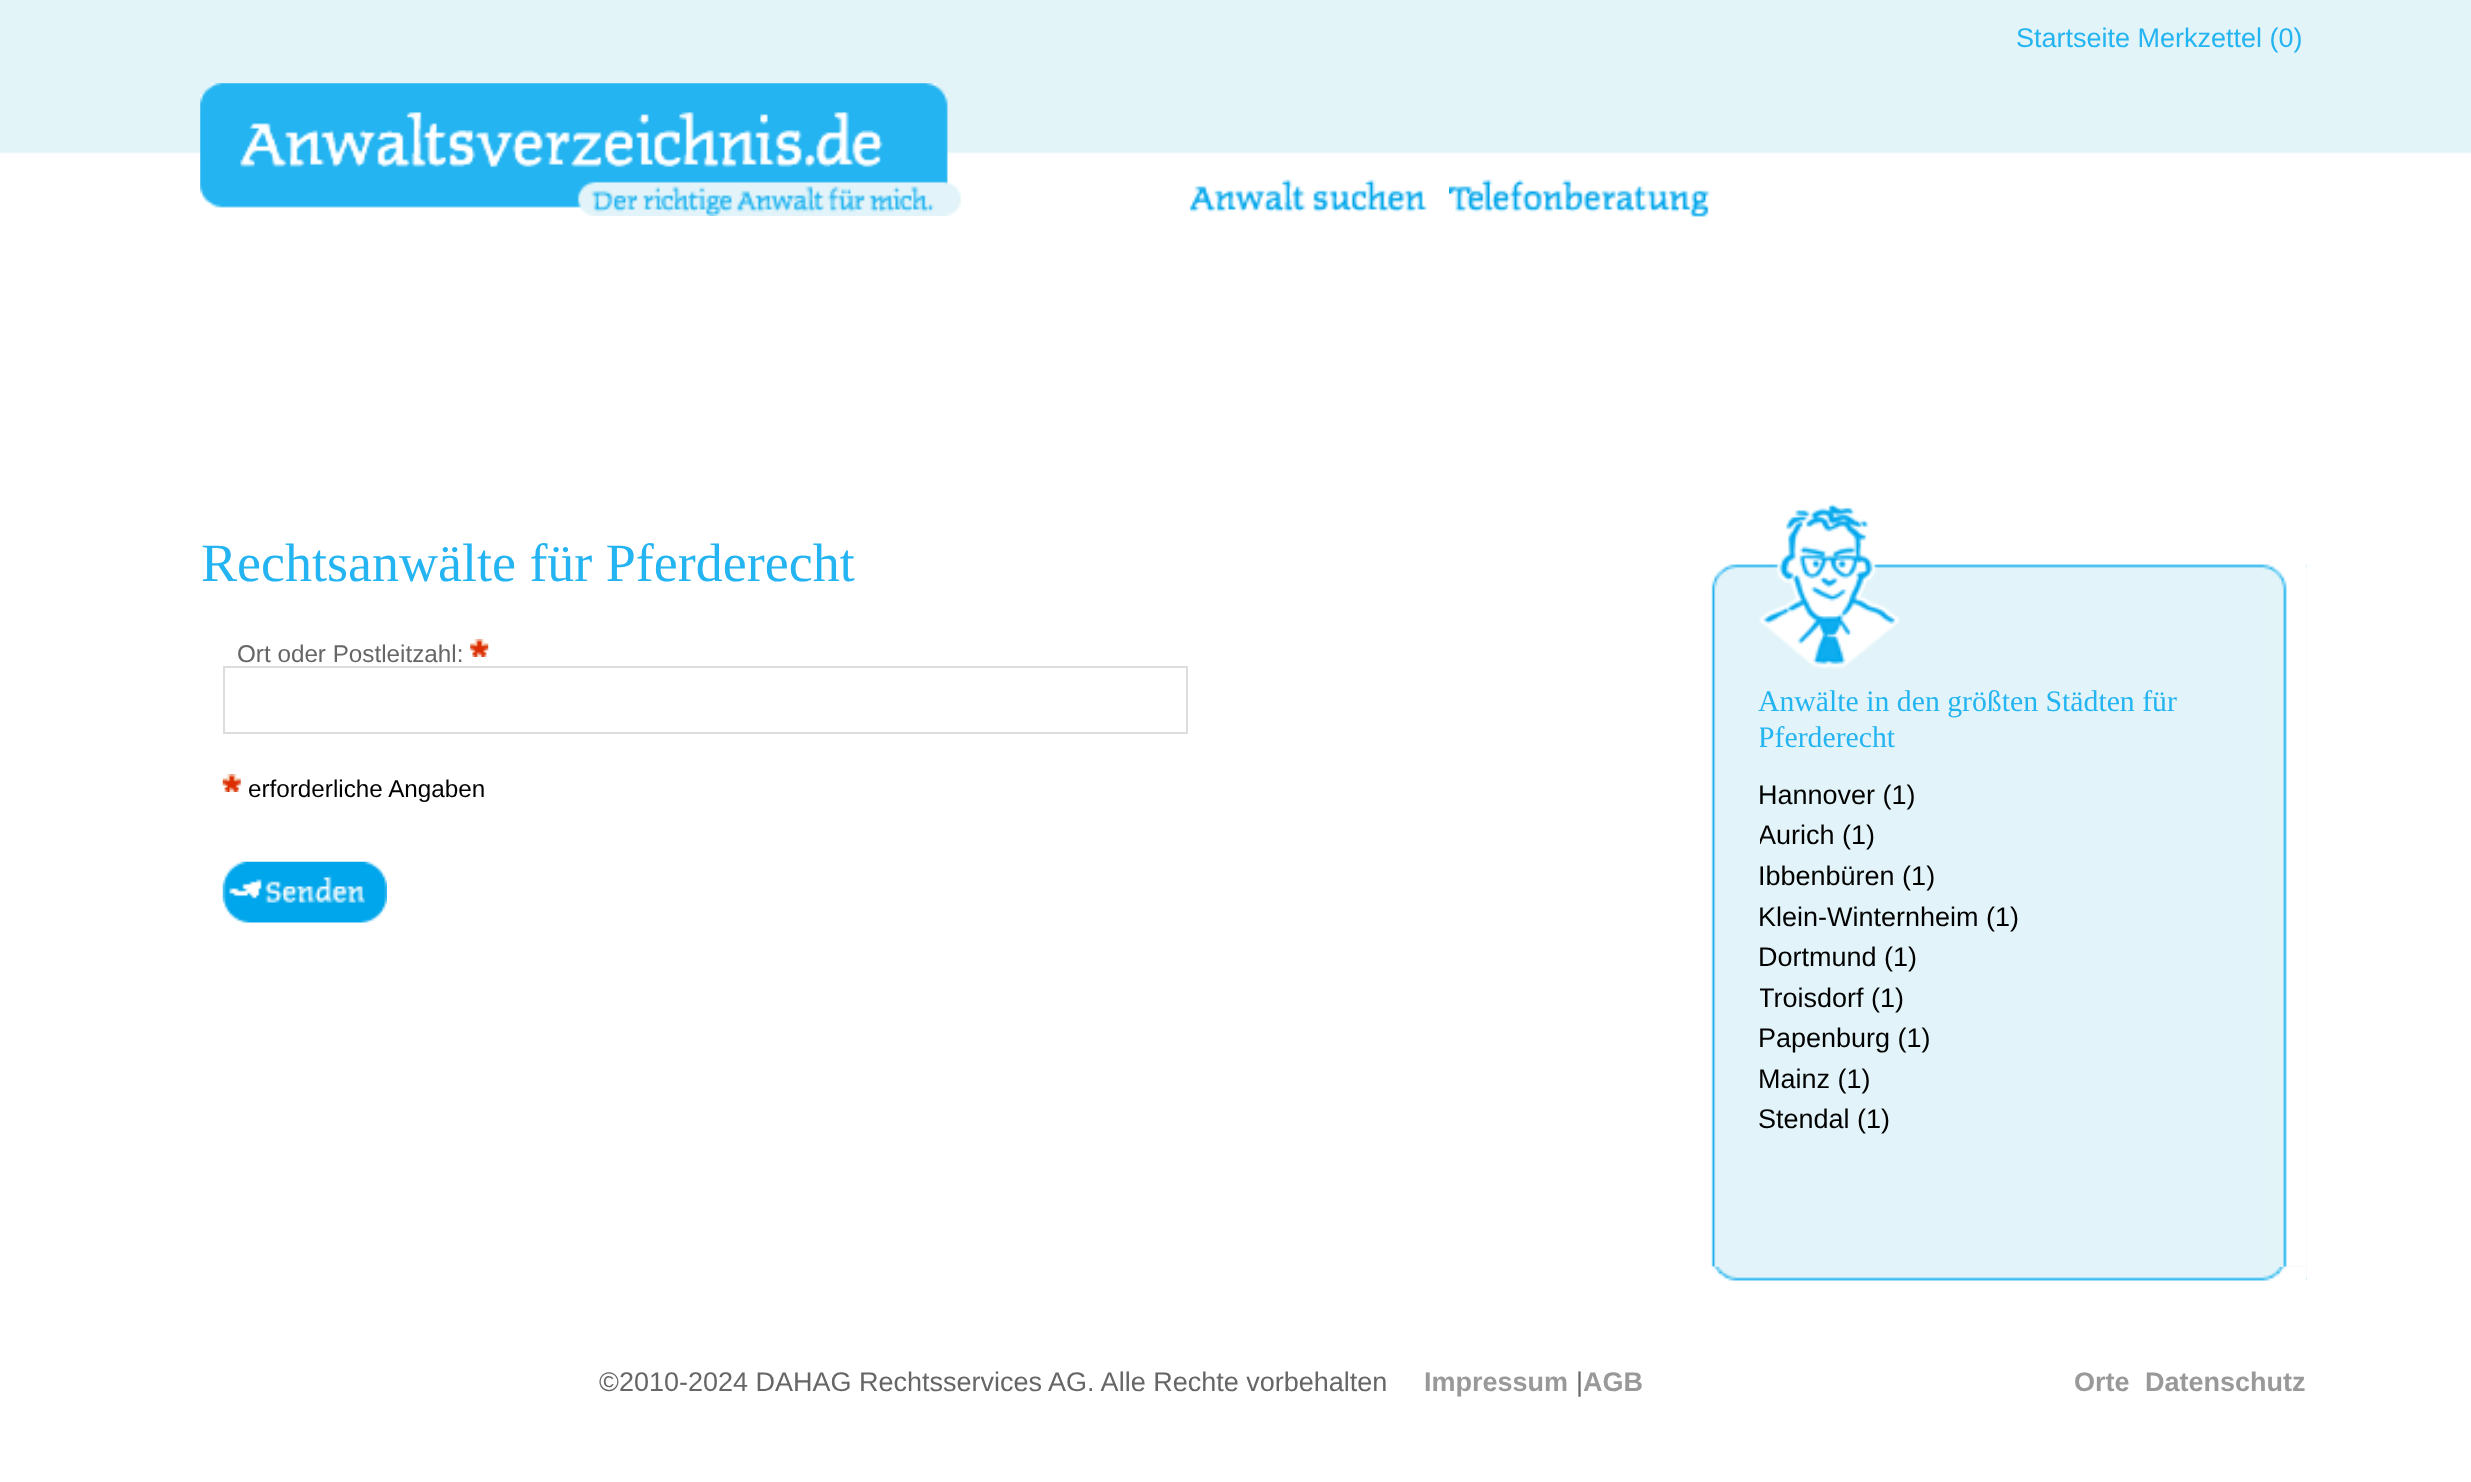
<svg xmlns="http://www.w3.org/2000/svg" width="2471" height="1482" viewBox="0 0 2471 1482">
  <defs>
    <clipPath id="clip1"><path d="M1760 684h479v466H1760z"/></clipPath>
  </defs>
  <rect width="100%" height="100%" fill="#fff"/>
  <image x="0" y="0" width="2471" height="154" href="img/1.png"/>
  <image x="200" y="83" width="761" height="133" href="img/2.png"/>
  <image x="1190" y="179" width="237" height="33" href="img/3.png"/>
  <image x="1449" y="179" width="261" height="38" href="img/4.png"/>
  <image x="470" y="639" width="19" height="18" href="img/5.png"/>
  <path d="M224 667h963v66H224z" fill="none" stroke="#ddd" stroke-width="2"/>
  <image x="222" y="774" width="19" height="18" href="img/6.png"/>
  <image x="222" y="861" width="165" height="62" href="img/7.png"/>
  <image x="1711" y="564" width="596" height="703" href="img/8.png"/>
  <image x="2262" y="564" width="44" height="703" href="img/9.png"/>
  <image x="1759" y="503" width="141" height="166" href="img/10.png"/>
  <image x="1711" y="1266" width="596" height="15" href="img/11.png"/>
  <image x="2261" y="1266" width="45" height="15" href="img/12.png"/>
  <text x="2016" y="47" font-family="Liberation Sans" font-size="27" fill="#23b4f1">Startseite Merkzettel (0)</text>
  <text x="201" y="581" font-family="Liberation Serif" font-size="54" fill="#23b4f1">Rechtsanwälte für Pferderecht</text>
  <text x="237" y="662" font-family="Liberation Sans" font-size="24.25" fill="#666">Ort oder Postleitzahl:</text>
  <text x="248" y="797" font-family="Liberation Sans" font-size="24.25" fill="#000">erforderliche Angaben</text>
  <text x="1758" y="711" font-family="Liberation Serif" font-size="29.75" fill="#23b4f1">Anwälte in den größten Städten für</text>
  <g clip-path="url(#clip1)">
    <text x="1758" y="747" font-family="Liberation Serif" font-size="29.75" fill="#23b4f1">Pferderecht</text>
  </g>
  <text x="1758" y="804" font-family="Liberation Sans" font-size="27" fill="#000">Hannover (1)</text>
  <g clip-path="url(#clip1)">
    <text x="1758" y="844" font-family="Liberation Sans" font-size="27" fill="#000">Aurich (1)</text>
  </g>
  <g font-family="Liberation Sans" font-size="27" fill="#000">
    <text x="1758" y="885">Ibbenbüren (1)</text>
    <text x="1758" y="926">Klein-Winternheim (1)</text>
    <text x="1758" y="966">Dortmund (1)</text>
  </g>
  <g clip-path="url(#clip1)">
    <text x="1758" y="1007" font-family="Liberation Sans" font-size="27" fill="#000">Troisdorf (1)</text>
  </g>
  <g font-family="Liberation Sans" font-size="27" fill="#000">
    <text x="1758" y="1047">Papenburg (1)</text>
    <text x="1758" y="1088">Mainz (1)</text>
    <text x="1758" y="1128">Stendal (1)</text>
  </g>
  <text x="599" y="1391" font-family="Liberation Sans" font-size="27" fill="#666">©2010-2024 DAHAG Rechtsservices AG. Alle Rechte vorbehalten</text>
  <text x="1424" y="1391" font-family="Liberation Sans" font-size="27" font-weight="bold" fill="#999">Impressum</text>
  <text x="1576" y="1391" font-family="Liberation Sans" font-size="27" fill="#666">|</text>
  <g font-family="Liberation Sans" font-size="27" font-weight="bold" fill="#999">
    <text x="1583" y="1391">AGB</text>
    <text x="2074" y="1391">Orte</text>
    <text x="2145" y="1391">Datenschutz</text>
  </g>
</svg>
